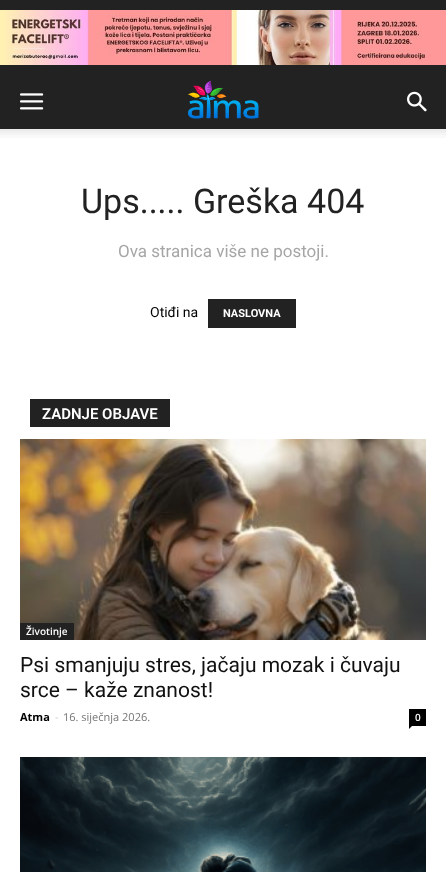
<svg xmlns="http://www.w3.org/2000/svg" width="446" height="872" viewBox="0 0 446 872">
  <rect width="100%" height="100%" fill="#fff"/>
  <path d="M0 0h446v129H0z" fill="#222"/>
  <image x="0" y="10" width="446" height="55" href="img/1.png"/>
  <image x="20" y="93" width="24" height="17" href="img/2.png"/>
  <image x="187" y="80" width="72" height="39" href="img/3.png"/>
  <image x="407" y="91" width="20" height="21" href="img/4.png"/>
  <image x="0" y="129" width="446" height="9" href="img/5.png"/>
  <path d="M208 299h88v29H208z" fill="#222"/>
  <path d="M30 399h140v28H30z" fill="#222"/>
  <image x="20" y="439" width="406" height="201" href="img/6.png"/>
  <path d="M20 623h54v17H20z" fill="#222"/>
  <path d="M409 709h17v17H409z" fill="#000"/>
  <path d="M409 726H412L409 729Z" fill="#000"/>
  <image x="20" y="757" width="406" height="115" href="img/7.png"/>
  <text x="81" y="213" font-family="Roboto" font-size="34" fill="#222">Ups..... Greška 404</text>
  <text x="118" y="257" font-family="Roboto" font-size="17" fill="#a6a6a6">Ova stranica više ne postoji.</text>
  <text x="150" y="317" font-family="Roboto" font-size="14" fill="#000">Otiđi na</text>
  <text x="223" y="317" font-family="Roboto" font-size="11" font-weight="bold" fill="#fff">NASLOVNA</text>
  <text x="42" y="419" font-family="Roboto" font-size="15" font-weight="600" fill="#fff">ZADNJE OBJAVE</text>
  <text x="26" y="635" font-family="Open Sans" font-size="10" font-weight="600" fill="#fff">Životinje</text>
  <g font-family="Roboto" font-size="21" fill="#111">
    <text x="20" y="672">Psi smanjuju stres, jačaju mozak i čuvaju</text>
    <text x="20" y="697">srce – kaže znanost!</text>
  </g>
  <text x="20" y="721" font-family="Open Sans" font-size="11" font-weight="bold" fill="#000">Atma</text>
  <text x="55" y="721" font-family="Open Sans" font-size="11" fill="#ccc">-</text>
  <text x="63" y="721" font-family="Open Sans" font-size="11" fill="#767676">16. siječnja 2026.</text>
  <text x="415" y="721" font-family="Open Sans" font-size="10" font-weight="600" fill="#fff">0</text>
</svg>
